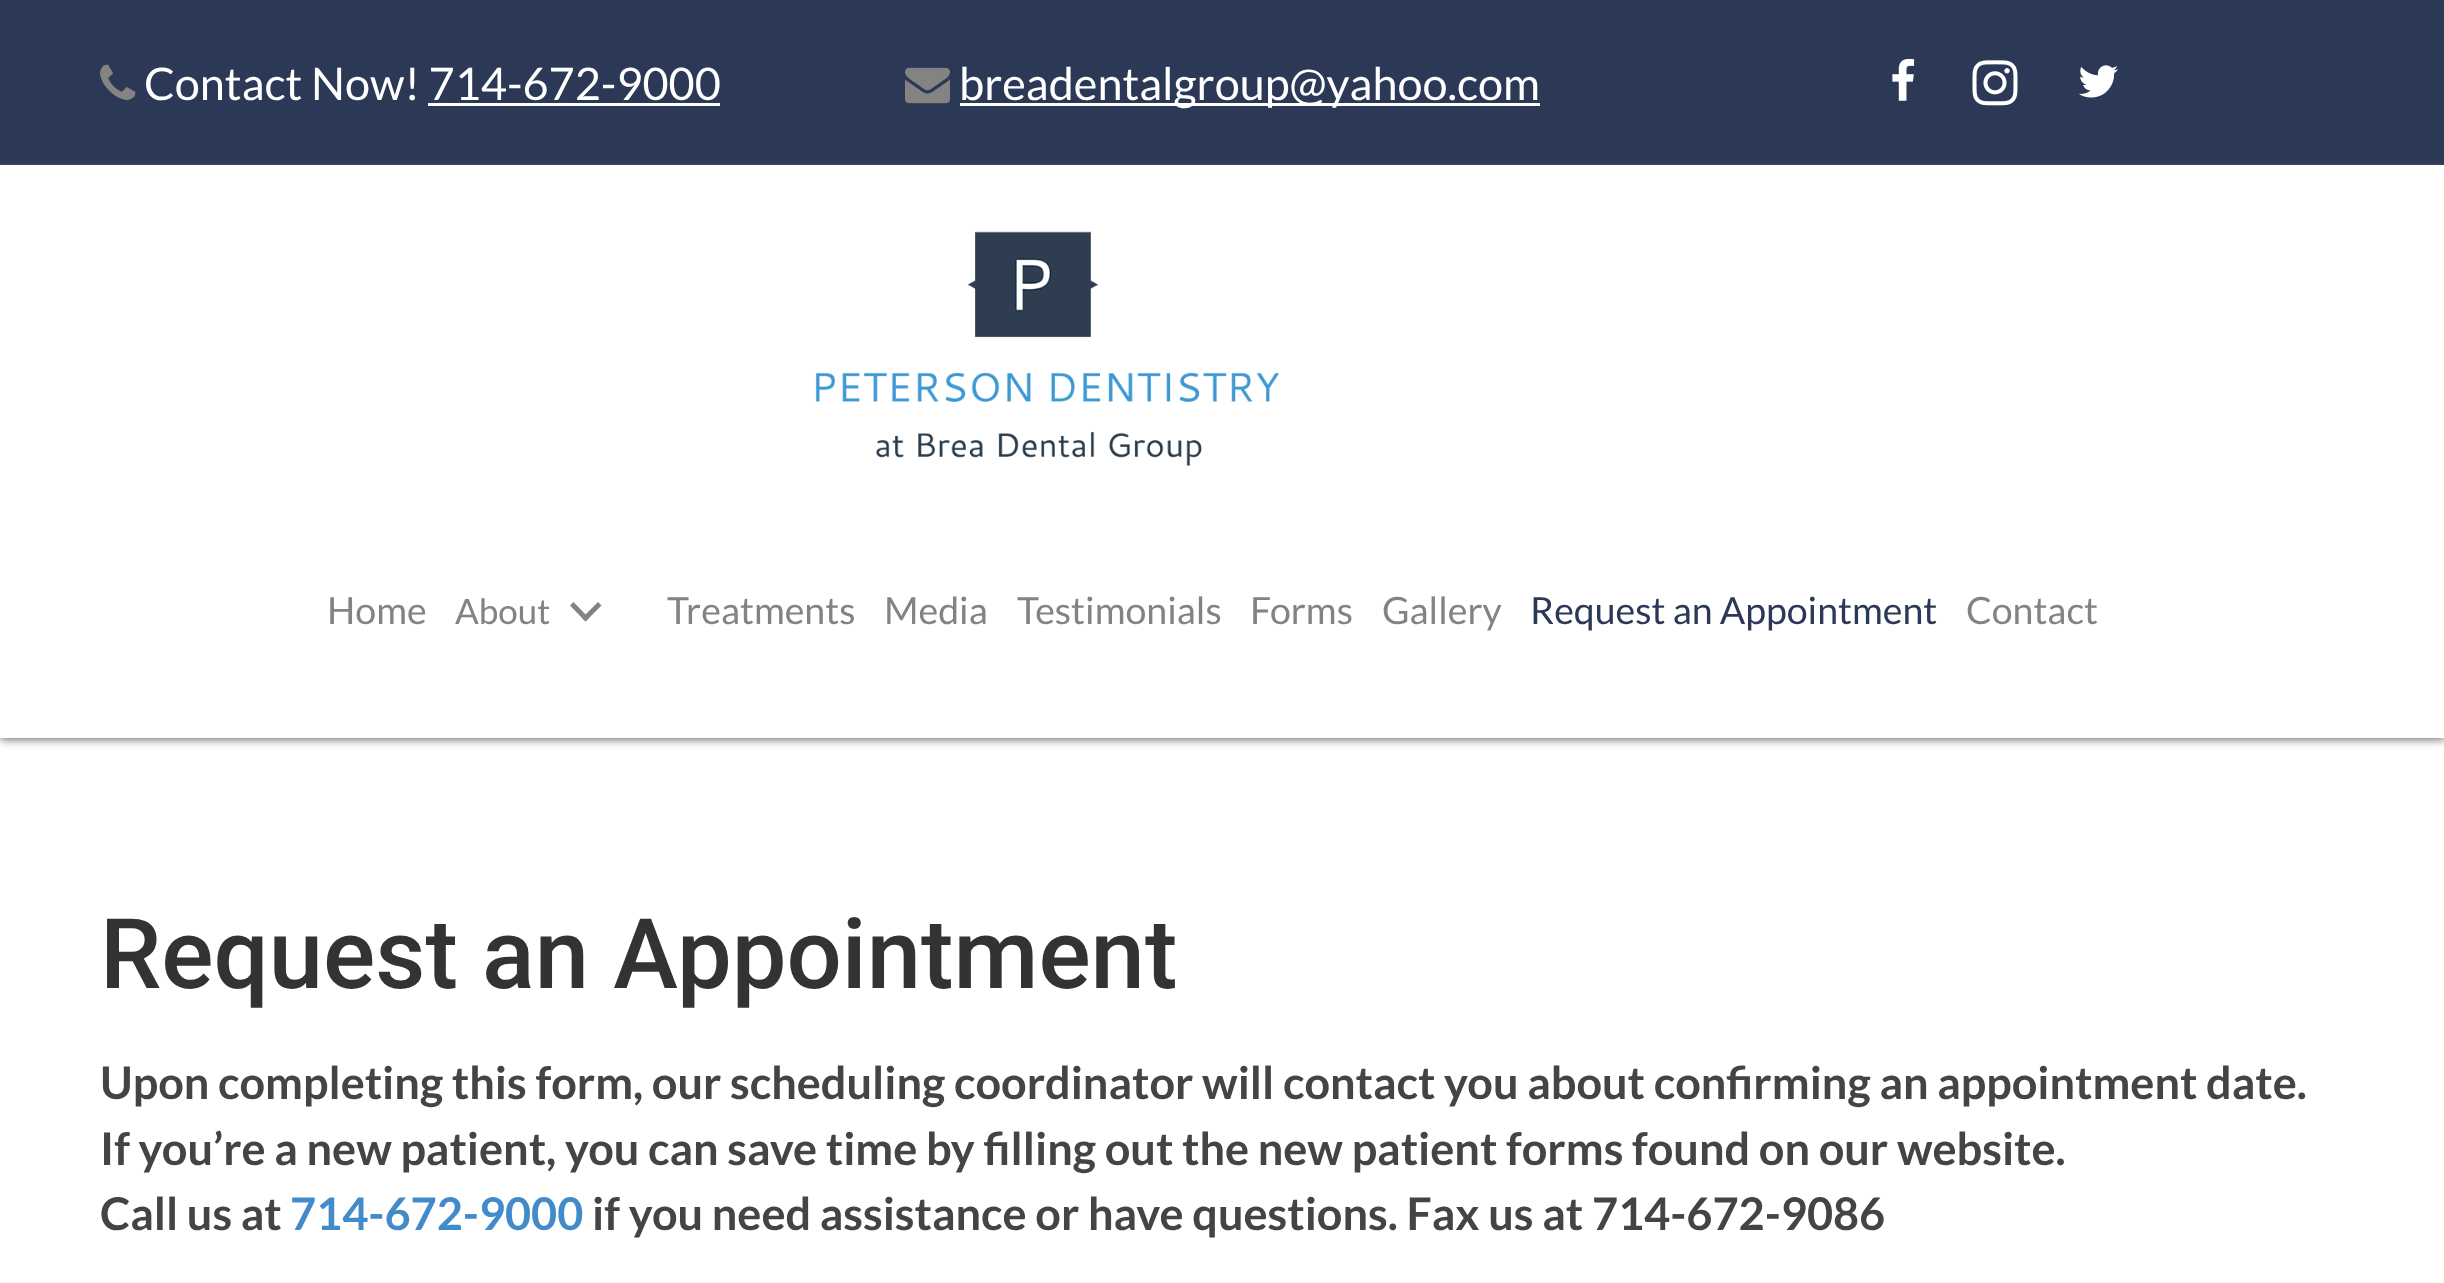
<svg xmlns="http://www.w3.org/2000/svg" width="2444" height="1283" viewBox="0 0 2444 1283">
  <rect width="100%" height="100%" fill="#fff"/>
  <path d="M0 0h2444v165H0z" fill="#2b3856"/>
  <image x="100" y="64" width="36" height="36" href="img/1.png"/>
  <path d="M428 103h292v3H428z" fill="#fff"/>
  <image x="905" y="67" width="45" height="37" href="img/2.png"/>
  <path d="M960 103h580v3H960z" fill="#fff"/>
  <image x="1892" y="58" width="23" height="43" href="img/3.png"/>
  <image x="1972" y="60" width="46" height="46" href="img/4.png"/>
  <image x="2078" y="65" width="40" height="33" href="img/5.png"/>
  <path d="M0 168h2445v572H0z" fill="#777" filter="blur(4px)"/>
  <path d="M0 165h2444v573H0z" fill="#fff"/>
  <image x="815" y="231" width="465" height="235" href="img/6.png"/>
  <path d="M598 602L601.5 605.5L585.5 621.5L582 618Z" fill="#848282"/>
  <path d="M573.5 602L589 618L585.5 621.5L570 605.5Z" fill="#848282"/>
  <g font-family="Lato" font-size="45" fill="#fff">
    <text x="144" y="100">Contact Now! 714-672-9000</text>
    <text x="959" y="100">breadentalgroup@yahoo.com</text>
  </g>
  <text x="327" y="624" font-family="Lato" font-size="37.5" fill="#848282">Home</text>
  <text x="455" y="624" font-family="Lato" font-size="35" fill="#848282">About</text>
  <g font-family="Lato" font-size="37.5" fill="#848282">
    <text x="667" y="624">Treatments</text>
    <text x="884" y="624">Media</text>
    <text x="1017" y="624">Testimonials</text>
    <text x="1250" y="624">Forms</text>
    <text x="1382" y="624">Gallery</text>
  </g>
  <text x="1530" y="624" font-family="Lato" font-size="37.5" fill="#2b3856">Request an Appointment</text>
  <text x="1966" y="624" font-family="Lato" font-size="37.5" fill="#848282">Contact</text>
  <text x="100" y="988" font-family="Roboto" font-size="97.5" font-weight="500" fill="#333">Request an Appointment</text>
  <g font-family="Lato" font-size="45" font-weight="bold" fill="#444">
    <text x="100" y="1099">Upon completing this form, our scheduling coordinator will contact you about confirming an appointment date.</text>
    <text x="100" y="1165">If you’re a new patient, you can save time by filling out the new patient forms found on our website.</text>
    <text x="100" y="1230">Call us at</text>
  </g>
  <text x="290" y="1230" font-family="Lato" font-size="45" font-weight="bold" fill="#428bca">714-672-9000</text>
  <text x="592" y="1230" font-family="Lato" font-size="45" font-weight="bold" fill="#444">if you need assistance or have questions. Fax us at 714-672-9086</text>
</svg>
